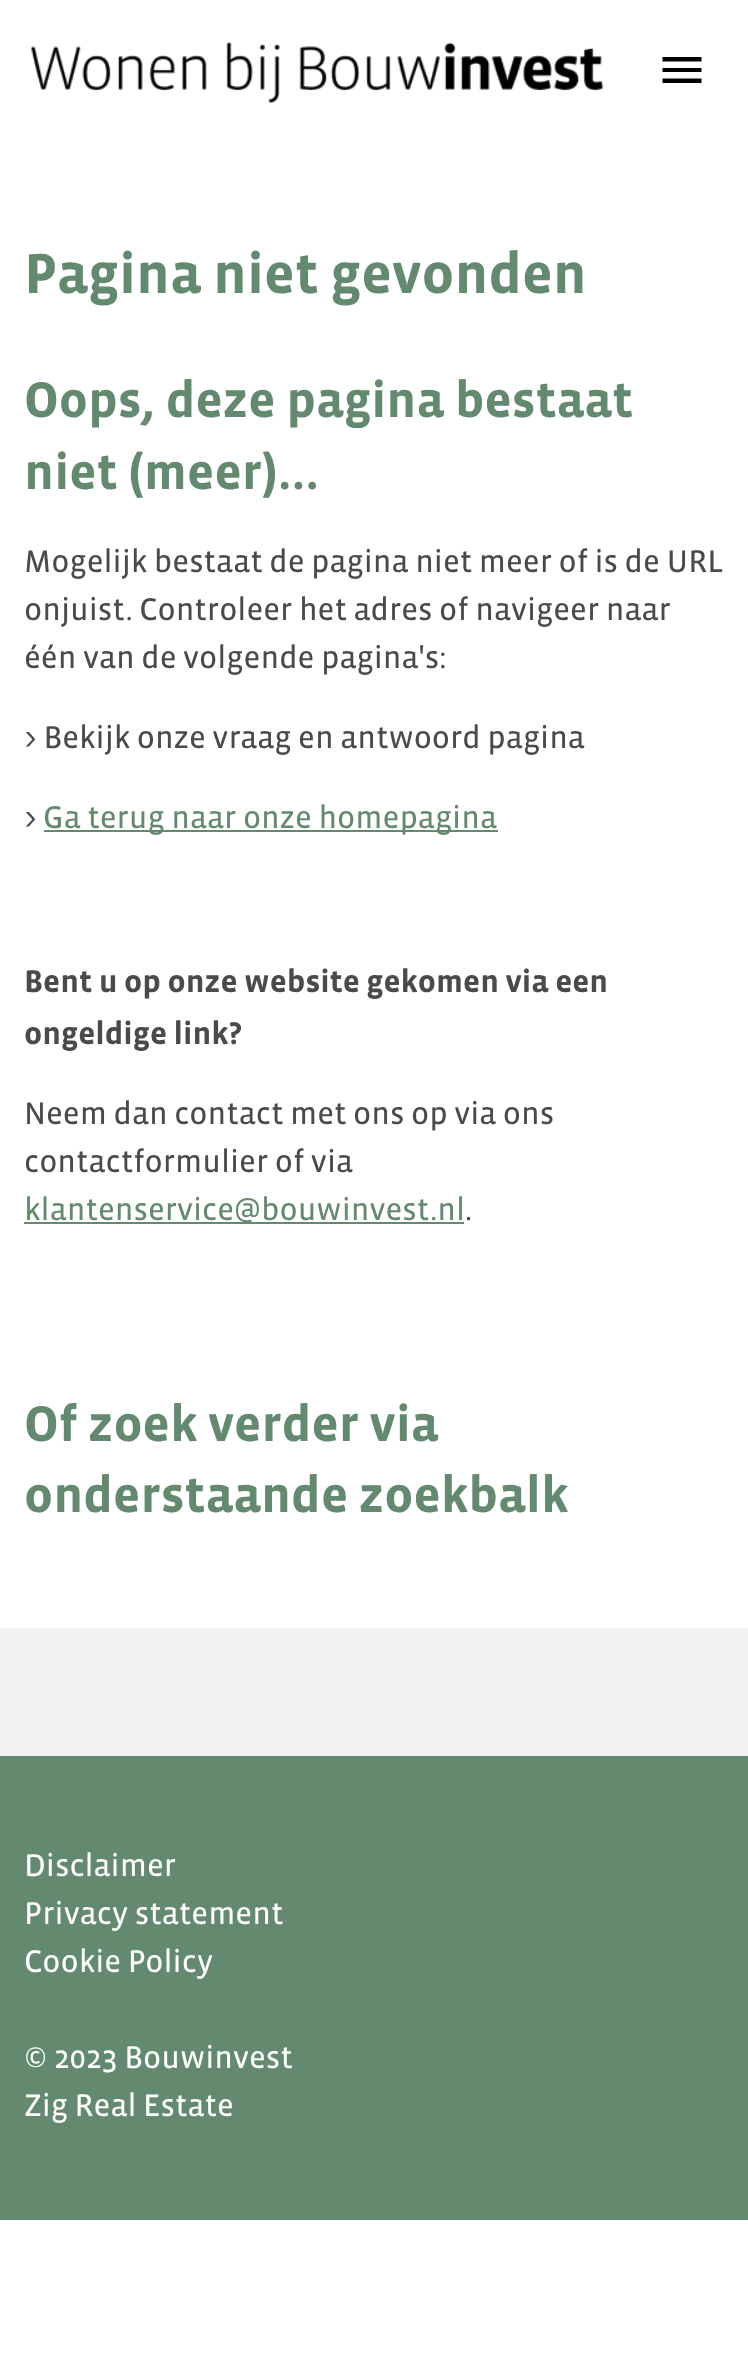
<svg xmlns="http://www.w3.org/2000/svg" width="748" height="2353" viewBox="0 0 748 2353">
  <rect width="100%" height="100%" fill="#fff"/>
  <image x="31" y="42" width="573" height="61" href="img/1.png"/>
  <path d="M662.5 83H701.5V78.5H662.5ZM662.5 72H701.5V68H662.5ZM662.5 57V61.5H701.5V57Z" fill="#000"/>
  <path d="M44 830h454v2H44z" fill="#638a6e"/>
  <path d="M24 1222h440v2H24z" fill="#638a6e"/>
  <path d="M0 1628h748v128H0z" fill="#f1f1f3"/>
  <path d="M0 1756h748v464H0z" fill="#638a6e"/>
  <text x="24" y="293" font-family="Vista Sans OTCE" font-size="57.75" font-weight="bold" fill="#638a6e">Pagina niet gevonden</text>
  <g font-family="Vista Sans OTCE" font-size="51.25" font-weight="bold" fill="#638a6e">
    <text x="24" y="417">Oops, deze pagina bestaat</text>
    <text x="24" y="489">niet (meer)...</text>
  </g>
  <g font-family="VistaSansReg" font-size="32" font-weight="500" fill="#4a4a4a">
    <text x="24" y="572">Mogelijk bestaat de pagina niet meer of is de URL</text>
    <text x="24" y="620">onjuist. Controleer het adres of navigeer naar</text>
    <text x="24" y="668">één van de volgende pagina's:</text>
    <text x="24" y="748">&gt; Bekijk onze vraag en antwoord pagina</text>
    <text x="24" y="828">&gt;</text>
  </g>
  <text x="43" y="828" font-family="VistaSansReg" font-size="32" font-weight="500" fill="#638a6e">Ga terug naar onze homepagina</text>
  <g font-family="Vista Sans OTCE" font-size="32" font-weight="bold" fill="#4a4a4a">
    <text x="24" y="992">Bent u op onze website gekomen via een</text>
    <text x="24" y="1044">ongeldige link?</text>
  </g>
  <g font-family="VistaSansReg" font-size="32" font-weight="500" fill="#4a4a4a">
    <text x="24" y="1124">Neem dan contact met ons op via ons</text>
    <text x="24" y="1172">contactformulier of via</text>
  </g>
  <g font-family="VistaSansReg" font-size="32" font-weight="500" fill="#638a6e">
    <text x="24" y="1220">klantenservice@bouwinvest</text>
    <text x="430" y="1220">.nl</text>
  </g>
  <text x="465" y="1220" font-family="VistaSansReg" font-size="32" font-weight="500" fill="#4a4a4a">.</text>
  <g font-family="Vista Sans OTCE" font-size="51.25" font-weight="bold" fill="#638a6e">
    <text x="24" y="1441">Of zoek verder via</text>
    <text x="24" y="1512">onderstaande zoekbalk</text>
  </g>
  <g font-family="VistaSansReg" font-size="32" font-weight="500" fill="#fff">
    <text x="24" y="1876">Disclaimer</text>
    <text x="24" y="1924">Privacy statement</text>
    <text x="24" y="1972">Cookie Policy</text>
    <text x="24" y="2068">© 2023 Bouwinvest</text>
    <text x="24" y="2116">Zig Real Estate</text>
  </g>
</svg>
